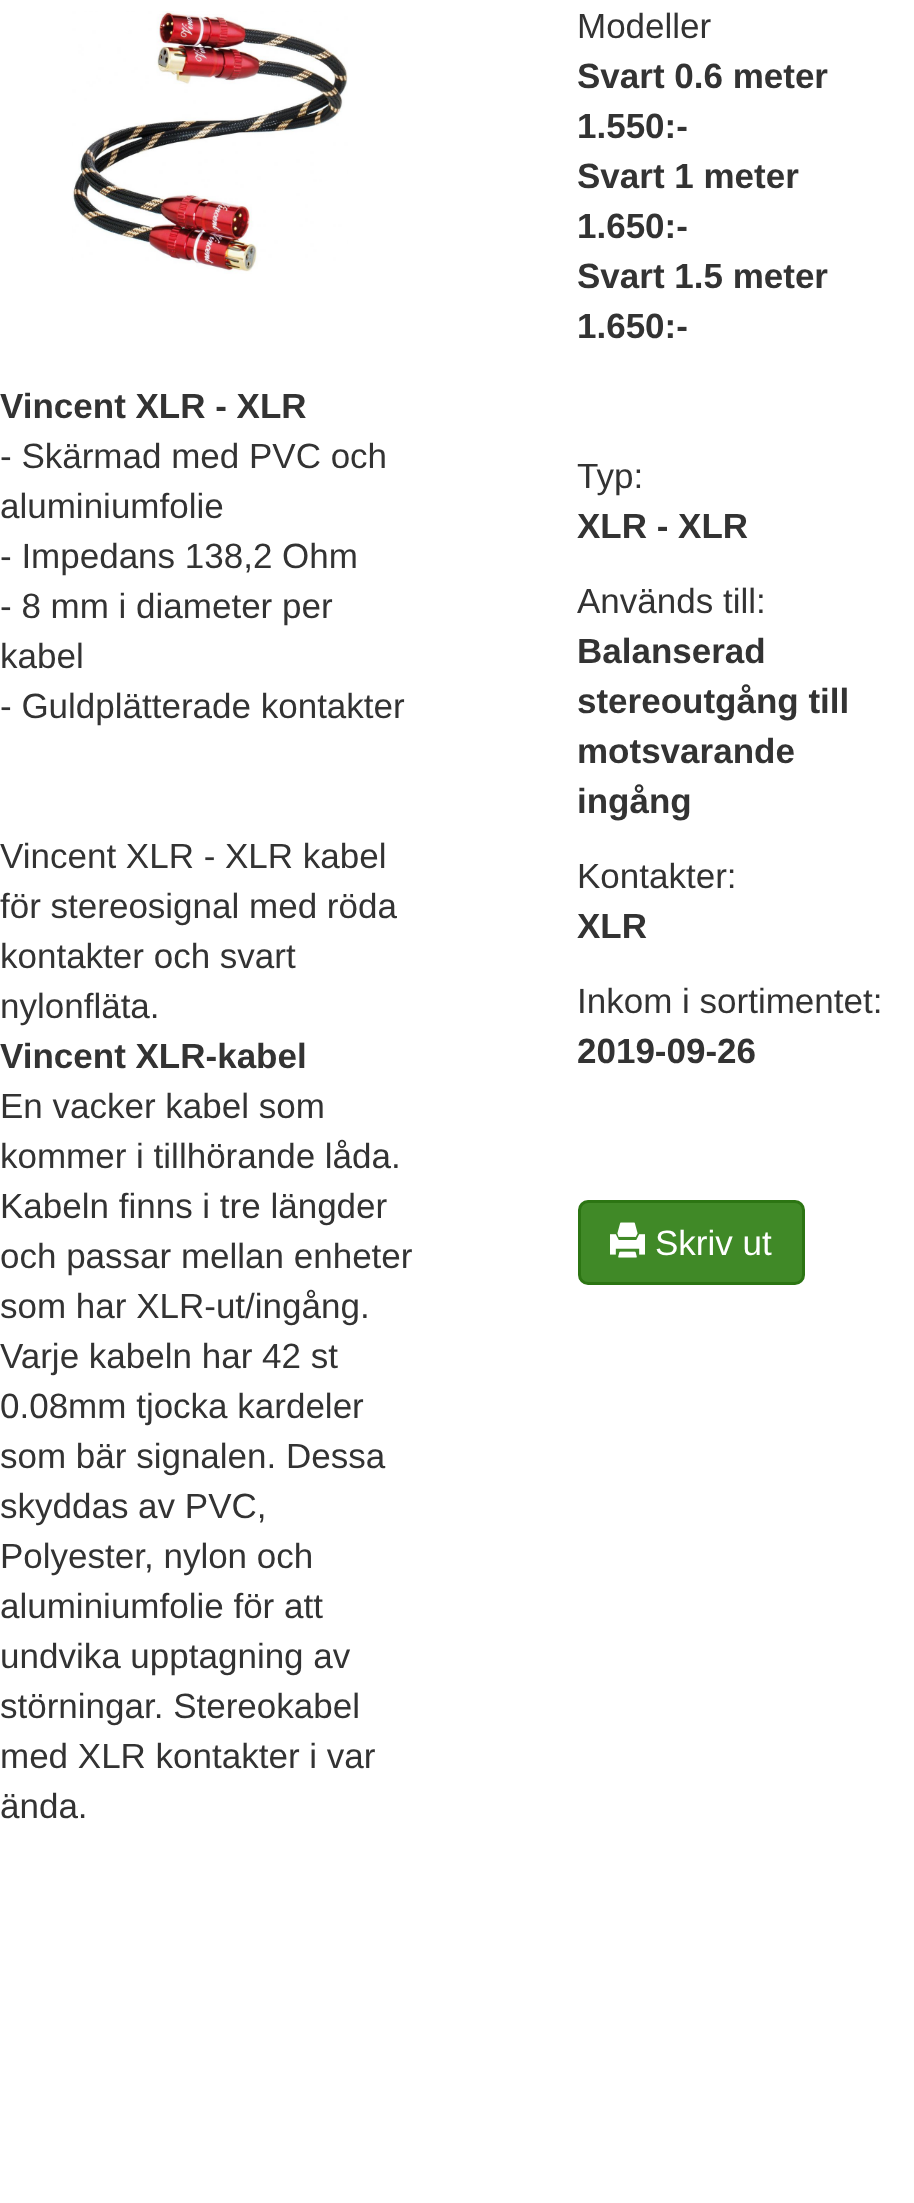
<svg xmlns="http://www.w3.org/2000/svg" width="914" height="2203" viewBox="0 0 914 2203">
  <rect width="100%" height="100%" fill="#fff"/>
  <image x="72" y="11" width="276" height="263" href="img/1.png"/>
  <rect x="579.5" y="1201.5" width="224" height="82" rx="8.5" fill="#408927" stroke="#2c7513" stroke-width="3"/>
  <image x="610" y="1222" width="35" height="36" href="img/2.png"/>
  <text x="0" y="418" font-family="Liberation Sans" font-size="35" font-weight="bold" fill="#333">Vincent XLR - XLR</text>
  <g font-family="Liberation Sans" font-size="35" fill="#333">
    <text x="0" y="468">- Skärmad med PVC och</text>
    <text x="0" y="518">aluminiumfolie</text>
    <text x="0" y="568">- Impedans 138,2 Ohm</text>
    <text x="0" y="618">- 8 mm i diameter per</text>
    <text x="0" y="668">kabel</text>
    <text x="0" y="718">- Guldplätterade kontakter</text>
    <text x="0" y="868">Vincent XLR - XLR kabel</text>
    <text x="0" y="918">för stereosignal med röda</text>
    <text x="0" y="968">kontakter och svart</text>
    <text x="0" y="1018">nylonfläta.</text>
  </g>
  <text x="0" y="1068" font-family="Liberation Sans" font-size="35" font-weight="bold" fill="#333">Vincent XLR-kabel</text>
  <g font-family="Liberation Sans" font-size="35" fill="#333">
    <text x="0" y="1118">En vacker kabel som</text>
    <text x="0" y="1168">kommer i tillhörande låda.</text>
    <text x="0" y="1218">Kabeln finns i tre längder</text>
    <text x="0" y="1268">och passar mellan enheter</text>
    <text x="0" y="1318">som har XLR-ut/ingång.</text>
    <text x="0" y="1368">Varje kabeln har 42 st</text>
    <text x="0" y="1418">0.08mm tjocka kardeler</text>
    <text x="0" y="1468">som bär signalen. Dessa</text>
    <text x="0" y="1518">skyddas av PVC,</text>
    <text x="0" y="1568">Polyester, nylon och</text>
    <text x="0" y="1618">aluminiumfolie för att</text>
    <text x="0" y="1668">undvika upptagning av</text>
    <text x="0" y="1718">störningar. Stereokabel</text>
    <text x="0" y="1768">med XLR kontakter i var</text>
    <text x="0" y="1818">ända.</text>
    <text x="577" y="38">Modeller</text>
  </g>
  <g font-family="Liberation Sans" font-size="35" font-weight="bold" fill="#333">
    <text x="577" y="88">Svart 0.6 meter</text>
    <text x="577" y="138">1.550:-</text>
    <text x="577" y="188">Svart 1 meter</text>
    <text x="577" y="238">1.650:-</text>
    <text x="577" y="288">Svart 1.5 meter</text>
    <text x="577" y="338">1.650:-</text>
  </g>
  <text x="577" y="488" font-family="Liberation Sans" font-size="35" fill="#333">Typ:</text>
  <text x="577" y="538" font-family="Liberation Sans" font-size="35" font-weight="bold" fill="#333">XLR - XLR</text>
  <text x="577" y="613" font-family="Liberation Sans" font-size="35" fill="#333">Används till:</text>
  <g font-family="Liberation Sans" font-size="35" font-weight="bold" fill="#333">
    <text x="577" y="663">Balanserad</text>
    <text x="577" y="713">stereoutgång till</text>
    <text x="577" y="763">motsvarande</text>
    <text x="577" y="813">ingång</text>
  </g>
  <text x="577" y="888" font-family="Liberation Sans" font-size="35" fill="#333">Kontakter:</text>
  <text x="577" y="938" font-family="Liberation Sans" font-size="35" font-weight="bold" fill="#333">XLR</text>
  <text x="577" y="1013" font-family="Liberation Sans" font-size="35" fill="#333">Inkom i sortimentet:</text>
  <text x="577" y="1063" font-family="Liberation Sans" font-size="35" font-weight="bold" fill="#333">2019-09-26</text>
  <text x="655" y="1255" font-family="Liberation Sans" font-size="35" fill="#fff">Skriv ut</text>
</svg>
